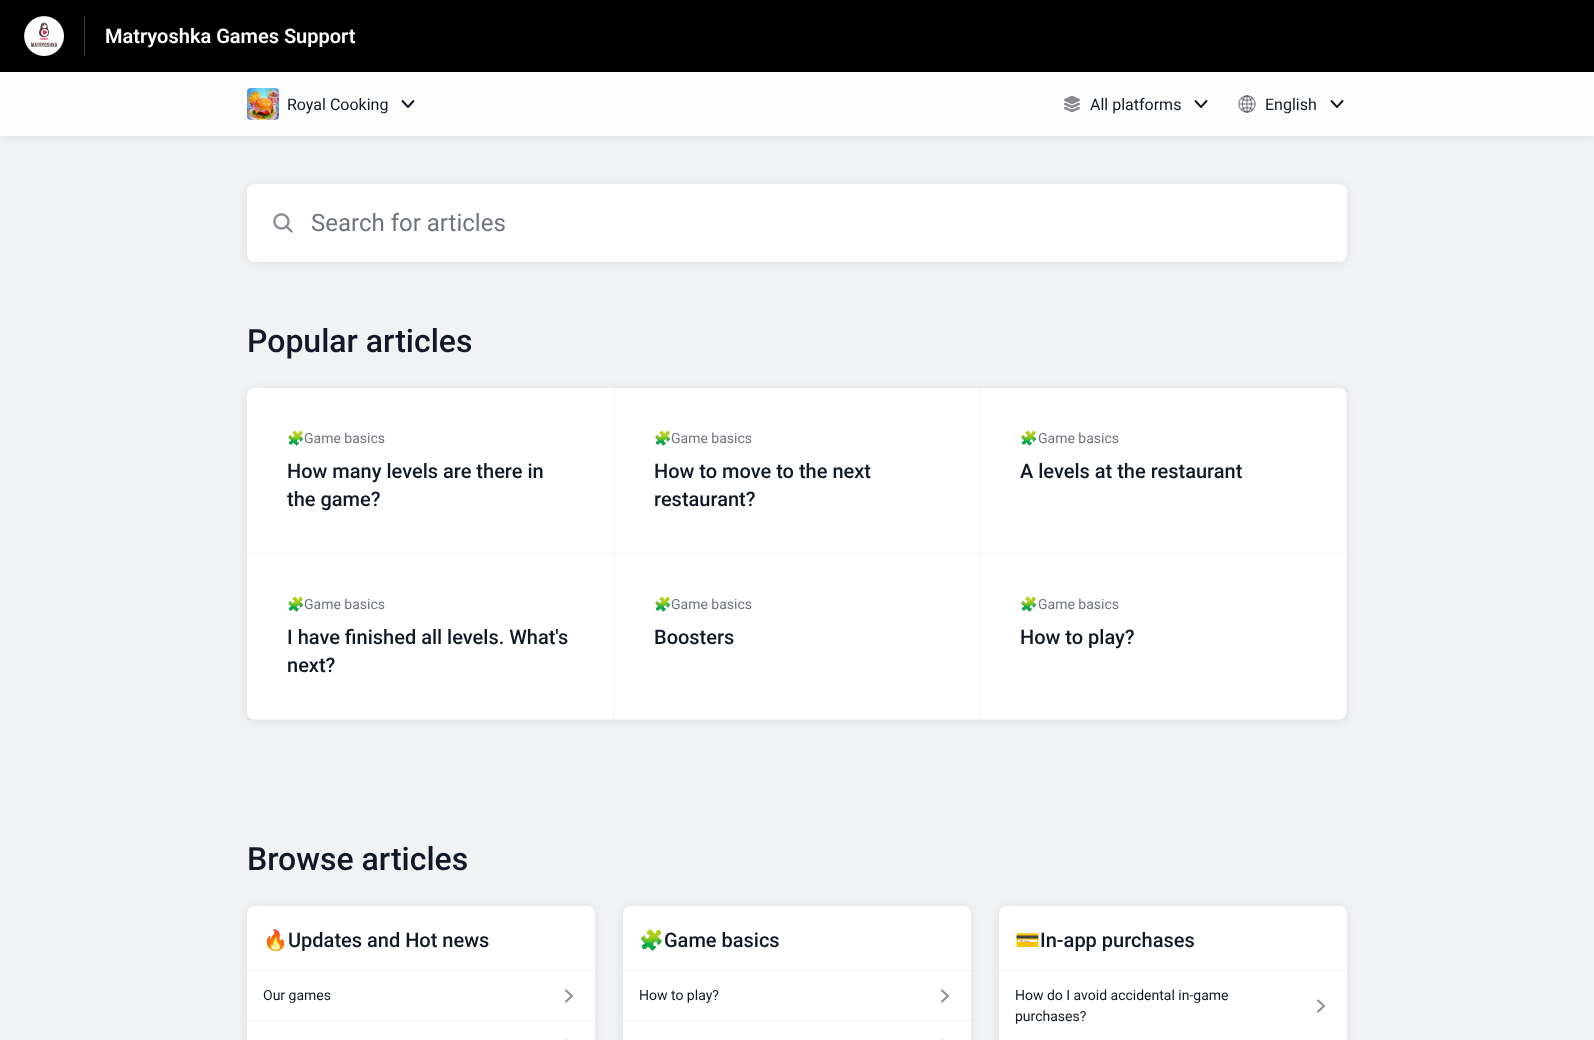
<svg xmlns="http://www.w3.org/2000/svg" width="1594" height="1040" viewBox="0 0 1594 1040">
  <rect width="100%" height="100%" fill="#f0f2f4"/>
  <path d="M0 73h1594v64H0z" fill="#00000014" filter="blur(4px)"/>
  <path d="M0 0h1594v72H0z" fill="#000"/>
  <path d="M84 16h1v40H84z" fill="#404040"/>
  <image x="24" y="16" width="40" height="40" href="img/1.png"/>
  <path d="M0 72h1594v64H0z" fill="#fdfdfd"/>
  <image x="247" y="88" width="32" height="32" href="img/2.png"/>
  <path d="M402.5 101L408 107L413.5 101" fill="none" stroke="#111827" stroke-width="1.9" stroke-linecap="round" stroke-linejoin="round"/>
  <image x="1063" y="95" width="17" height="18" href="img/3.png"/>
  <path d="M1195.5 101L1201 107L1206.5 101" fill="none" stroke="#111827" stroke-width="1.9" stroke-linecap="round" stroke-linejoin="round"/>
  <image x="1238" y="95" width="18" height="18" href="img/4.png"/>
  <path d="M1331.5 101L1337 107L1342.5 101" fill="none" stroke="#111827" stroke-width="1.9" stroke-linecap="round" stroke-linejoin="round"/>
  <rect x="247" y="185" width="1100" height="78" rx="8" fill="#00000014" filter="blur(4px)"/>
  <rect x="247" y="184" width="1100" height="78" rx="8" fill="#fff"/>
  <image x="273" y="213" width="20" height="20" href="img/5.png"/>
  <rect x="247" y="389" width="1100" height="332" rx="8" fill="#00000014" filter="blur(4px)"/>
  <rect x="247" y="388" width="1100" height="332" rx="8" fill="#fff"/>
  <path d="M614 388V554L613 553V388Z" fill="#f3f3f4"/>
  <path d="M614 554H247V553H613Z" fill="#1118270d"/>
  <path d="M980 388V554L979 553V388Z" fill="#f3f3f4"/>
  <path d="M980 554H614V553H979Z" fill="#1118270d"/>
  <path d="M1347 388V554L1346 553V388Z" fill="#1118270d"/>
  <path d="M1347 554H980V553H1346Z" fill="#1118270d"/>
  <path d="M614 554V720L613 719V554Z" fill="#f3f3f4"/>
  <path d="M614 720H247V719H613Z" fill="#1118270d"/>
  <path d="M980 554V720L979 719V554Z" fill="#f3f3f4"/>
  <path d="M980 720H614V719H979Z" fill="#1118270d"/>
  <path d="M1347 554V720L1346 719V554Z" fill="#1118270d"/>
  <path d="M1347 720H980V719H1346Z" fill="#1118270d"/>
  <rect x="247" y="907" width="348" height="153" rx="8" fill="#00000014" filter="blur(4px)"/>
  <path d="M255 906H587C591.5 906 595 909.5 595 914V1040H247V914C247 909.5 250.5 906 255 906Z" fill="#fff"/>
  <path d="M247 970h348v1H247z" fill="#f3f3f4"/>
  <path d="M247 1020h348v1H247z" fill="#f3f3f4"/>
  <path d="M566 990.5L572 996L566 1001.5M566 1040.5L572 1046L566 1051.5" fill="none" stroke="#888c93" stroke-width="1.9" stroke-linecap="round" stroke-linejoin="round"/>
  <rect x="623" y="907" width="348" height="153" rx="8" fill="#00000014" filter="blur(4px)"/>
  <path d="M631 906H963C967.5 906 971 909.5 971 914V1040H623V914C623 909.5 626.5 906 631 906Z" fill="#fff"/>
  <path d="M623 970h348v1H623z" fill="#f3f3f4"/>
  <path d="M623 1020h348v1H623z" fill="#f3f3f4"/>
  <path d="M942 990.5L948 996L942 1001.5M942 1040.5L948 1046L942 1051.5" fill="none" stroke="#888c93" stroke-width="1.9" stroke-linecap="round" stroke-linejoin="round"/>
  <rect x="999" y="907" width="348" height="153" rx="8" fill="#00000014" filter="blur(4px)"/>
  <path d="M1007 906H1339C1343.5 906 1347 909.5 1347 914V1040H999V914C999 909.5 1002.5 906 1007 906Z" fill="#fff"/>
  <path d="M999 970h348v1H999z" fill="#f3f3f4"/>
  <path d="M1318 1000.5L1324 1006L1318 1011.5" fill="none" stroke="#888c93" stroke-width="1.9" stroke-linecap="round" stroke-linejoin="round"/>
  <text x="105" y="43" font-family="Roboto" font-size="20" font-weight="600" fill="#fff">Matryoshka Games Support</text>
  <g font-family="Roboto" font-size="16" fill="#111827">
    <text x="287" y="110">Royal Cooking</text>
    <text x="1090" y="110">All platforms</text>
    <text x="1265" y="110">English</text>
  </g>
  <text x="311" y="231" font-family="Roboto" font-size="24" fill="#70747d">Search for articles</text>
  <text x="247" y="352" font-family="Roboto" font-size="32" font-weight="500" fill="#111827">Popular articles</text>
  <text x="287" y="443" font-family="Noto Color Emoji" font-size="14" fill="#70747d">🧩</text>
  <text x="304" y="443" font-family="Roboto" font-size="14" fill="#70747d">Game basics</text>
  <g font-family="Roboto" font-size="20" font-weight="500" fill="#111827">
    <text x="287" y="478">How many levels are there in</text>
    <text x="287" y="506">the game?</text>
  </g>
  <text x="654" y="443" font-family="Noto Color Emoji" font-size="14" fill="#70747d">🧩</text>
  <text x="671" y="443" font-family="Roboto" font-size="14" fill="#70747d">Game basics</text>
  <g font-family="Roboto" font-size="20" font-weight="500" fill="#111827">
    <text x="654" y="478">How to move to the next</text>
    <text x="654" y="506">restaurant?</text>
  </g>
  <text x="1020" y="443" font-family="Noto Color Emoji" font-size="14" fill="#70747d">🧩</text>
  <text x="1038" y="443" font-family="Roboto" font-size="14" fill="#70747d">Game basics</text>
  <text x="1020" y="478" font-family="Roboto" font-size="20" font-weight="500" fill="#111827">A levels at the restaurant</text>
  <text x="287" y="609" font-family="Noto Color Emoji" font-size="14" fill="#70747d">🧩</text>
  <text x="304" y="609" font-family="Roboto" font-size="14" fill="#70747d">Game basics</text>
  <g font-family="Roboto" font-size="20" font-weight="500" fill="#111827">
    <text x="287" y="644">I have finished all levels. What's</text>
    <text x="287" y="672">next?</text>
  </g>
  <text x="654" y="609" font-family="Noto Color Emoji" font-size="14" fill="#70747d">🧩</text>
  <text x="671" y="609" font-family="Roboto" font-size="14" fill="#70747d">Game basics</text>
  <text x="654" y="644" font-family="Roboto" font-size="20" font-weight="500" fill="#111827">Boosters</text>
  <text x="1020" y="609" font-family="Noto Color Emoji" font-size="14" fill="#70747d">🧩</text>
  <text x="1038" y="609" font-family="Roboto" font-size="14" fill="#70747d">Game basics</text>
  <text x="1020" y="644" font-family="Roboto" font-size="20" font-weight="500" fill="#111827">How to play?</text>
  <text x="247" y="870" font-family="Roboto" font-size="32" font-weight="500" fill="#111827">Browse articles</text>
  <text x="263" y="947" font-family="Noto Color Emoji" font-size="20" fill="#111827">🔥</text>
  <text x="288" y="947" font-family="Roboto" font-size="20" font-weight="500" fill="#111827">Updates and Hot news</text>
  <text x="263" y="1000" font-family="Roboto" font-size="14" fill="#111827">Our games</text>
  <text x="639" y="947" font-family="Noto Color Emoji" font-size="20" fill="#111827">🧩</text>
  <text x="664" y="947" font-family="Roboto" font-size="20" font-weight="500" fill="#111827">Game basics</text>
  <text x="639" y="1000" font-family="Roboto" font-size="14" fill="#111827">How to play?</text>
  <text x="1015" y="947" font-family="Noto Color Emoji" font-size="20" fill="#111827">💳</text>
  <text x="1040" y="947" font-family="Roboto" font-size="20" font-weight="500" fill="#111827">In-app purchases</text>
  <g font-family="Roboto" font-size="14" fill="#111827">
    <text x="1015" y="1000">How do I avoid accidental in-game</text>
    <text x="1015" y="1021">purchases?</text>
  </g>
</svg>
